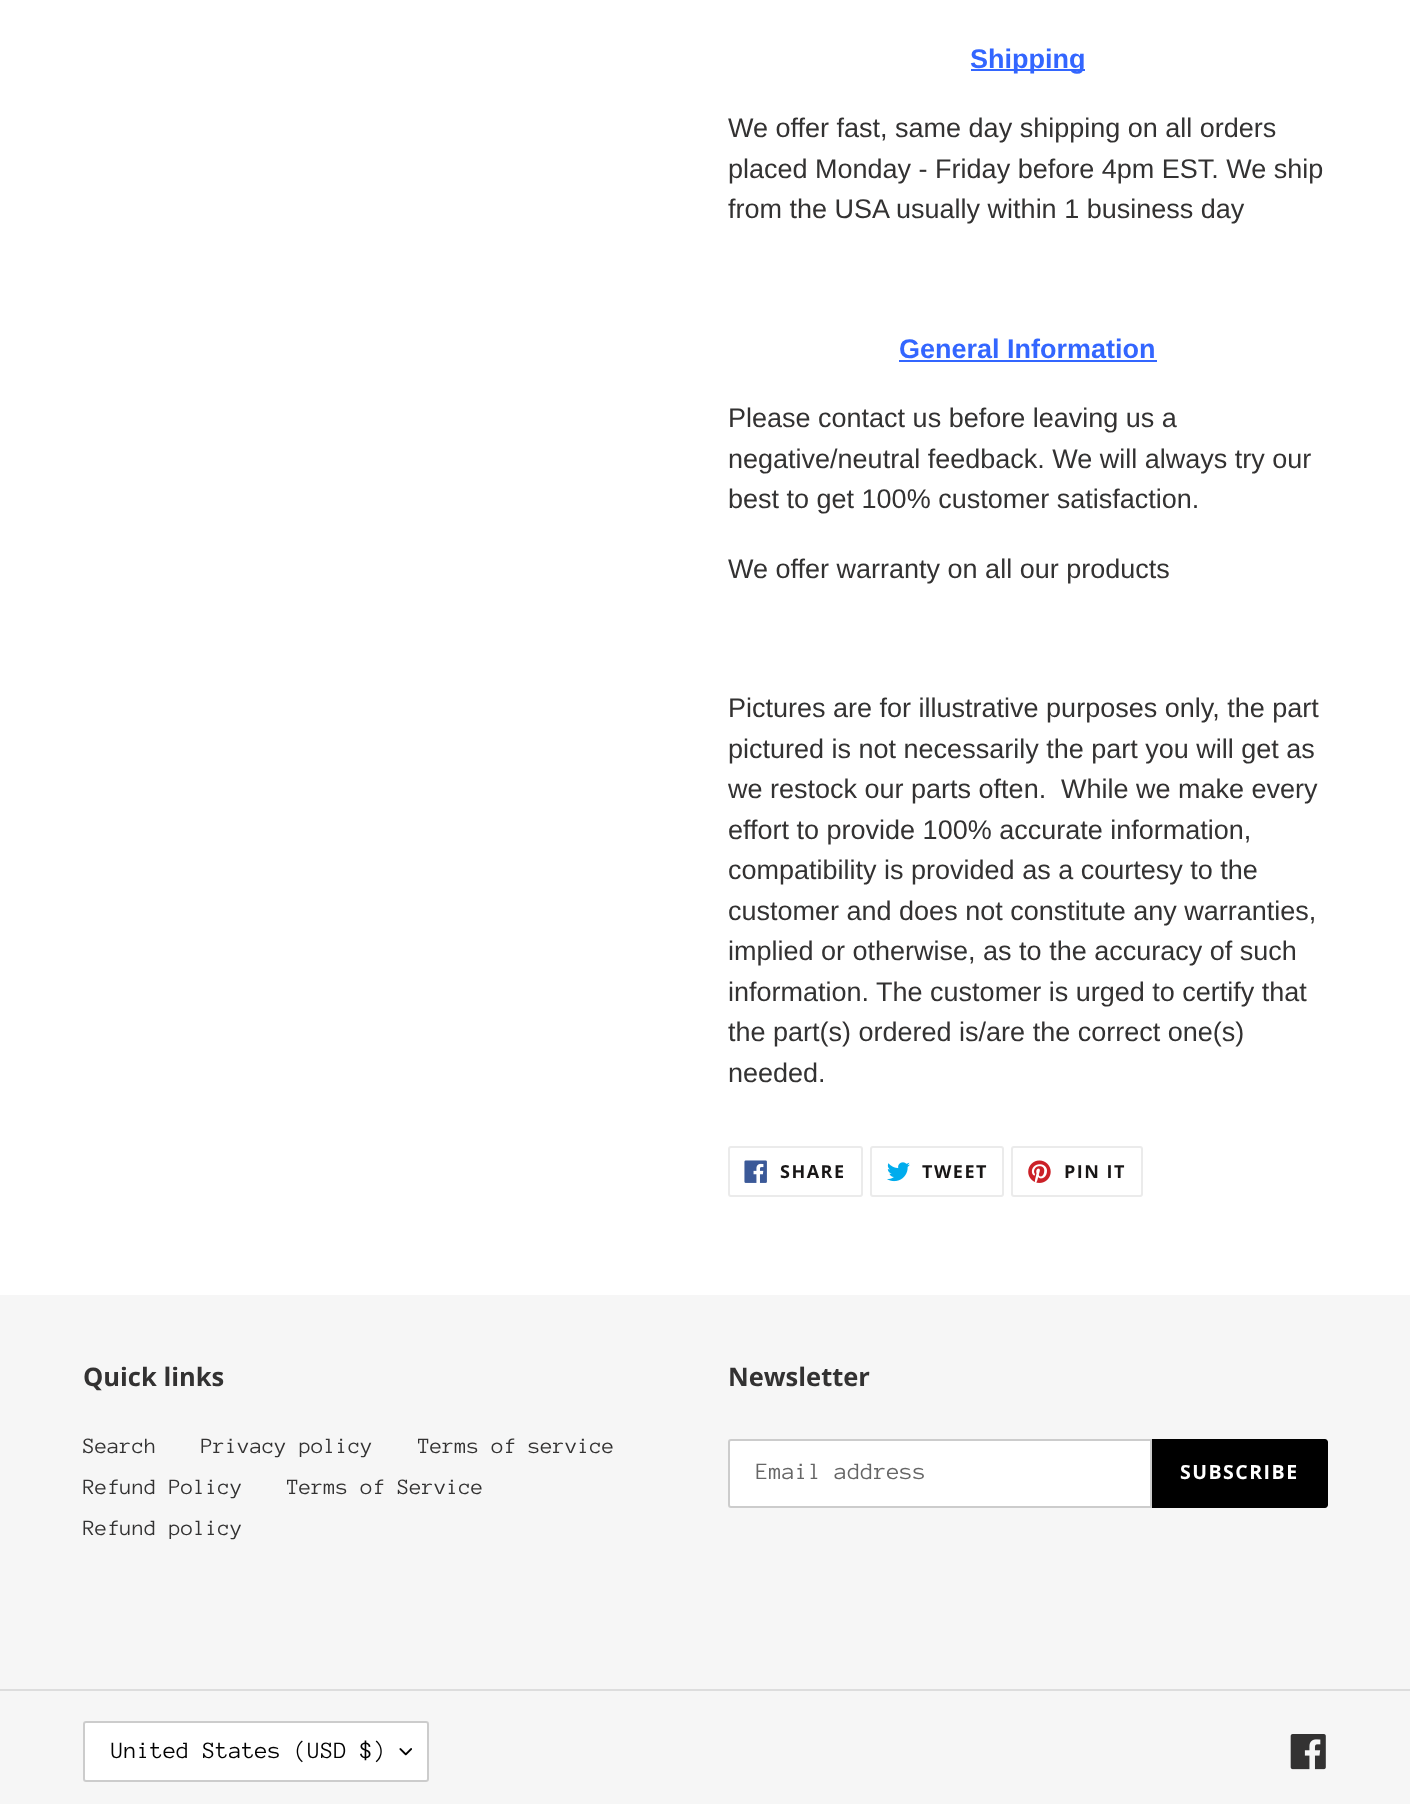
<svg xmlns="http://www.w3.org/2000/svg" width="1410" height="1804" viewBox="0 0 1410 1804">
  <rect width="100%" height="100%" fill="#fff"/>
  <path d="M971 69h114v2H971z" fill="#36f"/>
  <path d="M899 360h258v2H899z" fill="#36f"/>
  <rect x="729" y="1147" width="133" height="49" rx="2" fill="none" stroke="#ebebeb" stroke-width="2"/>
  <image x="744" y="1160" width="23" height="23" href="img/1.png"/>
  <rect x="871" y="1147" width="132" height="49" rx="2" fill="none" stroke="#ebebeb" stroke-width="2"/>
  <image x="887" y="1162" width="23" height="20" href="img/2.png"/>
  <rect x="1012" y="1147" width="130" height="49" rx="2" fill="none" stroke="#ebebeb" stroke-width="2"/>
  <image x="1028" y="1160" width="23" height="23" href="img/3.png"/>
  <path d="M0 1295h1410v509H0z" fill="#f6f6f6"/>
  <path d="M731 1440H1151V1507H731C730 1507 729 1506 729 1505V1442C729 1441 730 1440 731 1440Z" fill="#fff" stroke="#ccc" stroke-width="2"/>
  <path d="M1152 1439H1325C1326.5 1439 1328 1440.5 1328 1442V1505C1328 1506.5 1326.5 1508 1325 1508H1152Z" fill="#000"/>
  <path d="M0 1689h1410v2H0z" fill="#ddd"/>
  <rect x="83" y="1721" width="346" height="61" rx="3" fill="#fff"/>
  <image x="399" y="1748" width="13" height="8" href="img/4.png"/>
  <rect x="84" y="1722" width="344" height="59" rx="2" fill="none" stroke="#ccc" stroke-width="2"/>
  <image x="1290" y="1734" width="36" height="36" href="img/5.png"/>
  <text x="970" y="68" font-family="Liberation Sans" font-size="27" font-weight="bold" fill="#36f">Shipping</text>
  <g font-family="Liberation Sans" font-size="27" fill="#333232">
    <text x="728" y="137">We offer fast, same day shipping on all orders</text>
    <text x="728" y="178">placed Monday - Friday before 4pm EST. We ship</text>
    <text x="728" y="218">from the USA usually within 1 business day</text>
  </g>
  <text x="899" y="358" font-family="Liberation Sans" font-size="27" font-weight="bold" fill="#36f">General Information</text>
  <g font-family="Liberation Sans" font-size="27" fill="#333232">
    <text x="728" y="427">Please contact us before leaving us a</text>
    <text x="728" y="468">negative/neutral feedback. We will always try our</text>
    <text x="728" y="508">best to get 100% customer satisfaction.</text>
    <text x="728" y="578">We offer warranty on all our products</text>
    <text x="728" y="717">Pictures are for illustrative purposes only, the part</text>
    <text x="728" y="758">pictured is not necessarily the part you will get as</text>
    <text x="728" y="798">we restock our parts often.</text>
    <text x="1061" y="798">While we make every</text>
    <text x="728" y="839">effort to provide 100% accurate information,</text>
    <text x="728" y="879">compatibility is provided as a courtesy to the</text>
    <text x="728" y="920">customer and does not constitute any warranties,</text>
    <text x="728" y="960">implied or otherwise, as to the accuracy of such</text>
    <text x="728" y="1001">information. The customer is urged to certify that</text>
    <text x="728" y="1041">the part(s) ordered is/are the correct one(s)</text>
    <text x="728" y="1082">needed.</text>
  </g>
  <g font-family="Open Sans" font-size="18" font-weight="bold" letter-spacing="1.5" fill="#181616">
    <text x="780" y="1178">SHARE</text>
    <text x="922" y="1178">TWEET</text>
    <text x="1064" y="1178">PIN IT</text>
  </g>
  <text x="83" y="1386" font-family="Open Sans" font-size="25.5" font-weight="bold" fill="#333232">Quick links</text>
  <g font-family="Anonymous Pro" font-size="22.5" fill="#333232">
    <text x="83" y="1453">Search</text>
    <text x="201" y="1453">Privacy policy</text>
    <text x="418" y="1453">Terms of service</text>
    <text x="83" y="1494">Refund Policy</text>
    <text x="287" y="1494">Terms of Service</text>
    <text x="83" y="1535">Refund policy</text>
  </g>
  <text x="728" y="1386" font-family="Open Sans" font-size="25.5" font-weight="bold" fill="#333232">Newsletter</text>
  <text x="756" y="1479" font-family="Anonymous Pro" font-size="24" fill="#666">Email address</text>
  <text x="1180" y="1479" font-family="Open Sans" font-size="19.5" font-weight="bold" letter-spacing="1.5" fill="#fff">SUBSCRIBE</text>
  <text x="111" y="1758" font-family="Anonymous Pro" font-size="24" fill="#000">United States (USD $)</text>
</svg>
